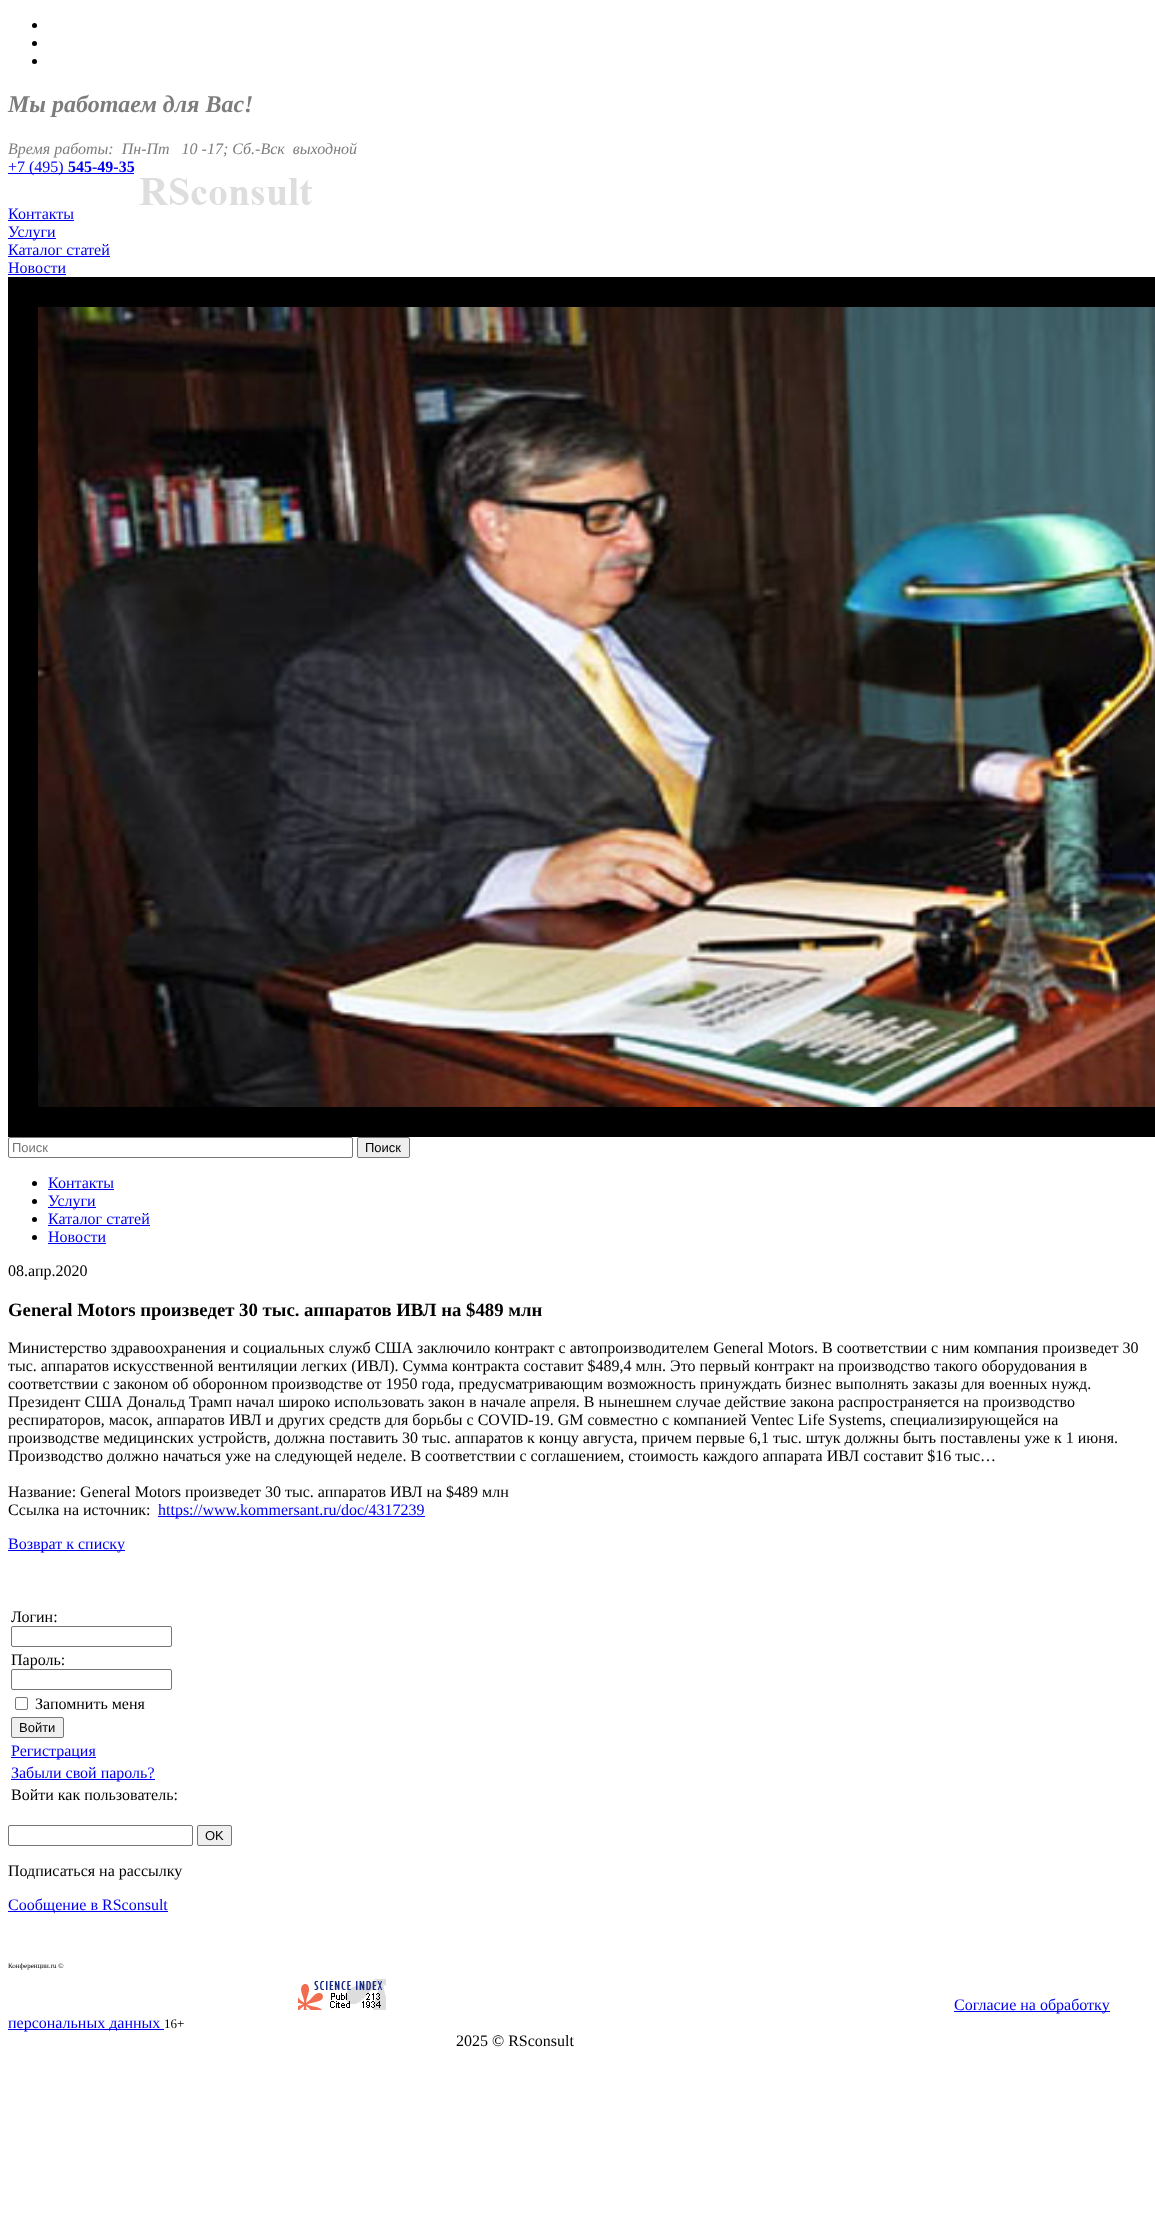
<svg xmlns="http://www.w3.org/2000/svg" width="1155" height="2239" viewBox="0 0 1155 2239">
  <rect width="100%" height="100%" fill="#fff"/>
  <circle cx="34.5" cy="25.5" r="2.5" fill="#000"/>
  <circle cx="34.5" cy="43.5" r="2.5" fill="#000"/>
  <circle cx="34.5" cy="61.5" r="2.5" fill="#000"/>
  <path d="M8 173h126v1H8z" fill="#00e"/>
  <image x="72" y="178" width="240" height="27" href="img/1.png"/>
  <path d="M8 220h66v1H8z" fill="#00e"/>
  <path d="M8 238h48v1H8z" fill="#00e"/>
  <path d="M8 256h102v1H8z" fill="#00e"/>
  <path d="M8 274h58v1H8z" fill="#00e"/>
  <path d="M23 292h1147v830H23z" fill="none" stroke="#000" stroke-width="30"/>
  <image x="38" y="307" width="1117" height="800" href="img/2.png"/>
  <rect x="8.5" y="1137.5" width="344" height="20" rx="1.5" fill="none" stroke="#767676"/>
  <rect x="357.5" y="1137.5" width="52" height="20" rx="1.5" fill="#efefef" stroke="#767676"/>
  <circle cx="34.5" cy="1183.5" r="2.5" fill="#000"/>
  <path d="M48 1189h66v1H48z" fill="#00e"/>
  <circle cx="34.5" cy="1201.5" r="2.5" fill="#000"/>
  <path d="M48 1207h48v1H48z" fill="#00e"/>
  <circle cx="34.5" cy="1219.5" r="2.5" fill="#000"/>
  <path d="M48 1225h102v1H48z" fill="#00e"/>
  <circle cx="34.5" cy="1237.5" r="2.5" fill="#000"/>
  <path d="M48 1243h58v1H48z" fill="#00e"/>
  <path d="M158 1516h267v1H158z" fill="#00e"/>
  <path d="M8 1550h117v1H8z" fill="#00e"/>
  <rect x="11.5" y="1626.5" width="160" height="20" rx="1.5" fill="none" stroke="#767676"/>
  <rect x="11.5" y="1669.5" width="160" height="20" rx="1.5" fill="none" stroke="#767676"/>
  <rect x="15.5" y="1697.5" width="12" height="12" rx="1.5" fill="none" stroke="#767676"/>
  <rect x="11.5" y="1717.5" width="52" height="20" rx="1.5" fill="#efefef" stroke="#767676"/>
  <path d="M11 1757h85v1H11z" fill="#00e"/>
  <path d="M11 1779h144v1H11z" fill="#00e"/>
  <rect x="8.5" y="1825.5" width="184" height="20" rx="1.5" fill="none" stroke="#767676"/>
  <rect x="197.5" y="1825.5" width="34" height="20" rx="1.5" fill="#efefef" stroke="#767676"/>
  <path d="M8 1911h160v1H8z" fill="#00e"/>
  <image x="298" y="1979" width="88" height="31" href="img/3.png"/>
  <path d="M954 2011h156v1H954z" fill="#00e"/>
  <path d="M8 2029h156v1H8z" fill="#00e"/>
  <text x="8" y="112" font-family="Liberation Serif" font-size="24" font-weight="bold" font-style="italic" fill="#7d7d7d">Мы работаем для Вас!</text>
  <text x="8" y="154" font-family="Liberation Serif" font-size="16" font-style="italic" fill="#7d7d7d" xml:space="preserve">Время работы:  Пн-Пт   10 -17; Сб.-Вск  выходной</text>
  <text x="8" y="172" font-family="Liberation Serif" font-size="16" fill="#00e">+7 (495)</text>
  <text x="68" y="172" font-family="Liberation Serif" font-size="16" font-weight="bold" fill="#00e">545-49-35</text>
  <g font-family="Liberation Serif" font-size="16" fill="#00e">
    <text x="8" y="219">Контакты</text>
    <text x="8" y="237">Услуги</text>
    <text x="8" y="255">Каталог статей</text>
    <text x="8" y="273">Новости</text>
  </g>
  <text x="12" y="1152" font-family="Liberation Sans" font-size="13" fill="#757575">Поиск</text>
  <text x="365" y="1152" font-family="Liberation Sans" font-size="13" fill="#000">Поиск</text>
  <g font-family="Liberation Serif" font-size="16" fill="#00e">
    <text x="48" y="1188">Контакты</text>
    <text x="48" y="1206">Услуги</text>
    <text x="48" y="1224">Каталог статей</text>
    <text x="48" y="1242">Новости</text>
  </g>
  <text x="8" y="1276" font-family="Liberation Serif" font-size="16" fill="#000">08.апр.2020</text>
  <text x="8" y="1316" font-family="Liberation Serif" font-size="18.75" font-weight="bold" fill="#000">General Motors произведет 30 тыс. аппаратов ИВЛ на $489 млн</text>
  <g font-family="Liberation Serif" font-size="16" fill="#000">
    <text x="8" y="1353">Министерство здравоохранения и социальных служб США заключило контракт с автопроизводителем General Motors. В соответствии с ним компания произведет 30</text>
    <text x="8" y="1371">тыс. аппаратов искусственной вентиляции легких (ИВЛ). Сумма контракта составит $489,4 млн. Это первый контракт на производство такого оборудования в</text>
    <text x="8" y="1389">соответствии с законом об оборонном производстве от 1950 года, предусматривающим возможность принуждать бизнес выполнять заказы для военных нужд.</text>
    <text x="8" y="1407">Президент США Дональд Трамп начал широко использовать закон в начале апреля. В нынешнем случае действие закона распространяется на производство</text>
    <text x="8" y="1425">респираторов, масок, аппаратов ИВЛ и других средств для борьбы с COVID-19. GM совместно с компанией Ventec Life Systems, специализирующейся на</text>
    <text x="8" y="1443">производстве медицинских устройств, должна поставить 30 тыс. аппаратов к концу августа, причем первые 6,1 тыс. штук должны быть поставлены уже к 1 июня.</text>
    <text x="8" y="1461">Производство должно начаться уже на следующей неделе. В соответствии с соглашением, стоимость каждого аппарата ИВЛ составит $16 тыс…</text>
    <text x="8" y="1497">Название: General Motors произведет 30 тыс. аппаратов ИВЛ на $489 млн</text>
    <text x="8" y="1515">Ссылка на источник:</text>
  </g>
  <g font-family="Liberation Serif" font-size="16" fill="#00e">
    <text x="158" y="1515">https://www.kommersant.ru/doc/4317239</text>
    <text x="8" y="1549">Возврат к списку</text>
  </g>
  <g font-family="Liberation Serif" font-size="16" fill="#000">
    <text x="11" y="1622">Логин:</text>
    <text x="11" y="1665">Пароль:</text>
    <text x="35" y="1709">Запомнить меня</text>
  </g>
  <text x="19" y="1732" font-family="Liberation Sans" font-size="13" fill="#000">Войти</text>
  <g font-family="Liberation Serif" font-size="16" fill="#00e">
    <text x="11" y="1756">Регистрация</text>
    <text x="11" y="1778">Забыли свой пароль?</text>
  </g>
  <text x="11" y="1800" font-family="Liberation Serif" font-size="16" fill="#000">Войти как пользователь:</text>
  <text x="205" y="1840" font-family="Liberation Sans" font-size="13" fill="#000">OK</text>
  <text x="8" y="1876" font-family="Liberation Serif" font-size="16" fill="#000">Подписаться на рассылку</text>
  <text x="8" y="1910" font-family="Liberation Serif" font-size="16" fill="#00e">Сообщение в RSconsult</text>
  <text x="8" y="1968" font-family="Liberation Serif" font-size="7" fill="#000">Конференции.ru ©</text>
  <g font-family="Liberation Serif" font-size="16" fill="#00e">
    <text x="954" y="2010">Согласие на обработку</text>
    <text x="8" y="2028">персональных данных</text>
  </g>
  <text x="164" y="2028" font-family="Liberation Serif" font-size="13" fill="#000">16+</text>
  <text x="456" y="2046" font-family="Liberation Serif" font-size="16" fill="#000">2025 © RSconsult</text>
</svg>
